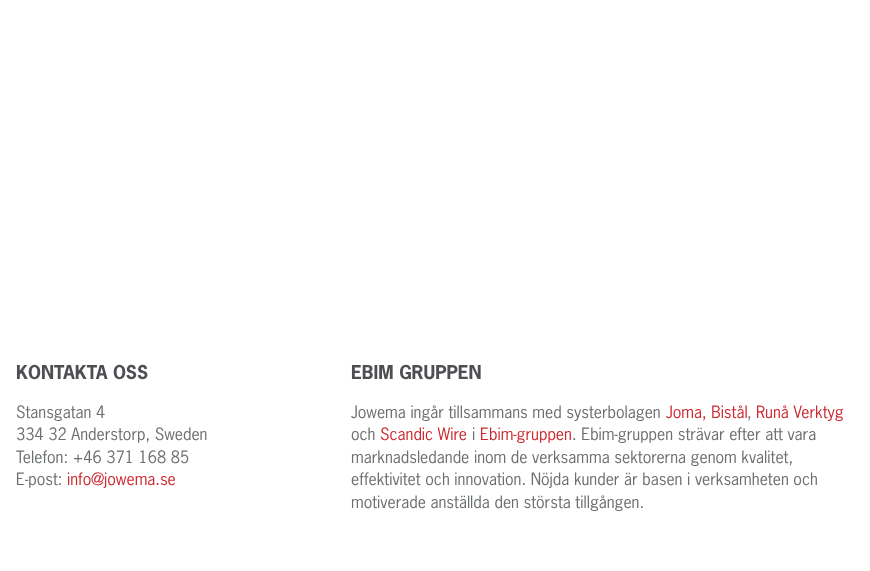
<svg xmlns="http://www.w3.org/2000/svg" width="870" height="571" viewBox="0 0 870 571">
  <rect width="100%" height="100%" fill="#fff"/>
  <text x="16" y="379" font-family="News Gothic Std" font-size="18" font-weight="bold" fill="#4d4f53">KONTAKTA OSS</text>
  <g font-family="News Gothic Std" font-size="16" fill="#6c6f70">
    <text x="16" y="418">Stansgatan 4</text>
    <text x="16" y="440">334 32 Anderstorp, Sweden</text>
    <text x="16" y="463">Telefon: +46 371 168 85</text>
    <text x="16" y="485">E-post:</text>
  </g>
  <text x="67" y="485" font-family="News Gothic Std" font-size="16" fill="#cc2a30">info@jowema.se</text>
  <text x="351" y="379" font-family="News Gothic Std" font-size="18" font-weight="bold" fill="#4d4f53">EBIM GRUPPEN</text>
  <text x="351" y="418" font-family="News Gothic Std" font-size="16" fill="#6c6f70">Jowema ingår tillsammans med systerbolagen</text>
  <text x="666" y="418" font-family="News Gothic Std" font-size="16" fill="#cc2a30">Joma, Bistål</text>
  <text x="747" y="418" font-family="News Gothic Std" font-size="16" fill="#6c6f70">,</text>
  <text x="756" y="418" font-family="News Gothic Std" font-size="16" fill="#cc2a30">Runå Verktyg</text>
  <text x="351" y="440" font-family="News Gothic Std" font-size="16" fill="#6c6f70">och</text>
  <text x="380" y="440" font-family="News Gothic Std" font-size="16" fill="#cc2a30">Scandic Wire</text>
  <text x="472" y="440" font-family="News Gothic Std" font-size="16" fill="#6c6f70">i</text>
  <text x="480" y="440" font-family="News Gothic Std" font-size="16" fill="#cc2a30">Ebim-gruppen</text>
  <g font-family="News Gothic Std" font-size="16" fill="#6c6f70">
    <text x="572" y="440">. Ebim-gruppen strävar efter att vara</text>
    <text x="351" y="463">marknadsledande inom de verksamma sektorerna genom kvalitet,</text>
    <text x="351" y="485">effektivitet och innovation. Nöjda kunder är basen i verksamheten och</text>
    <text x="351" y="508">motiverade anställda den största tillgången.</text>
  </g>
</svg>
